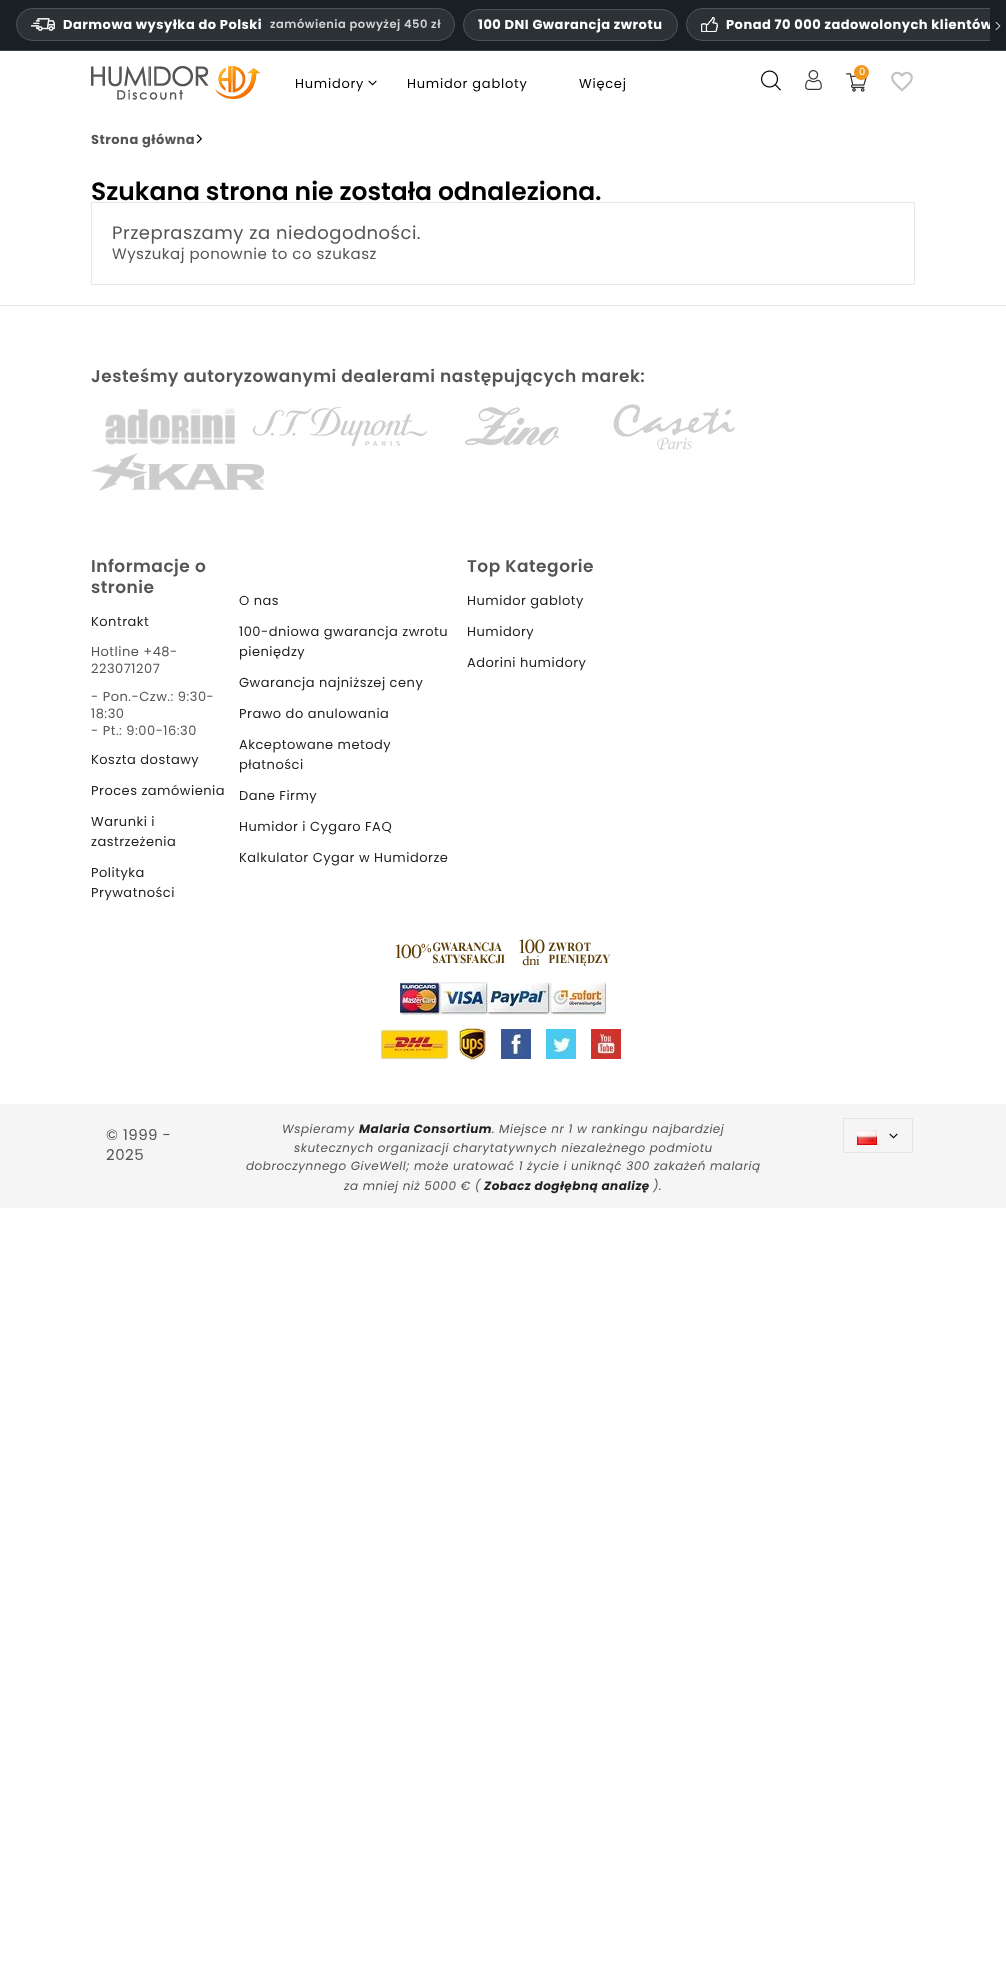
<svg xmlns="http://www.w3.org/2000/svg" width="1006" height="1965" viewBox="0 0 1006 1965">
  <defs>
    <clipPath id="clip1"><path d="M16 6h974v38H16z"/></clipPath>
  </defs>
  <rect width="100%" height="100%" fill="#fff"/>
  <path d="M0 0h1006v50H0z" fill="#1a1f25"/>
  <path d="M0 50h1006v1H0z" fill="#3f4348"/>
  <rect x="16" y="8" width="439" height="33" rx="16.5" fill="#2c3136"/>
  <rect x="16.5" y="8.5" width="438" height="32" rx="16" fill="none" stroke="#ffffff29"/>
  <image x="31" y="18" width="24" height="13" href="img/1.png"/>
  <rect x="463" y="9" width="215" height="32" rx="16" fill="#2c3136"/>
  <rect x="463.5" y="9.5" width="214" height="31" rx="15.5" fill="none" stroke="#ffffff29"/>
  <path d="M702.5 8H990V41H702.5C693.5 41 686 33.5 686 24.5C686 15.5 693.5 8 702.5 8Z" fill="#2c3136"/>
  <g clip-path="url(#clip1)">
    <rect x="686.5" y="8.5" width="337" height="32" rx="16" fill="none" stroke="#ffffff29"/>
  </g>
  <image x="701" y="17" width="17" height="15" href="img/2.png"/>
  <image x="995" y="21" width="6" height="10" href="img/3.png"/>
  <image x="91" y="66" width="169" height="34" href="img/4.png"/>
  <image x="368" y="80" width="9" height="6" href="img/5.png"/>
  <image x="761" y="70" width="20" height="21" href="img/6.png"/>
  <image x="805" y="70" width="17" height="20" href="img/7.png"/>
  <image x="846" y="73" width="21" height="19" href="img/8.png"/>
  <circle cx="861.5" cy="72.5" r="7.5" fill="#f2991d"/>
  <image x="891" y="71" width="22" height="21" href="img/9.png"/>
  <image x="196" y="134" width="6" height="10" href="img/10.png"/>
  <path d="M91.5 202.5h823v82H91.5z" fill="none" stroke="#e7e7e7"/>
  <path d="M0 305h1006v1H0z" fill="#e7e7e7"/>
  <image x="105" y="408" width="130" height="37" href="img/11.png"/>
  <image x="253" y="407" width="174" height="39" href="img/12.png"/>
  <image x="464" y="407" width="95" height="39" href="img/13.png"/>
  <image x="613" y="404" width="122" height="46" href="img/14.png"/>
  <image x="91" y="453" width="174" height="38" href="img/15.png"/>
  <image x="395" y="939" width="216" height="27" href="img/16.png"/>
  <image x="400" y="982" width="206" height="33" href="img/17.png"/>
  <image x="380" y="1028" width="106" height="32" href="img/18.png"/>
  <image x="501" y="1029" width="30" height="30" href="img/19.png"/>
  <image x="546" y="1029" width="30" height="30" href="img/20.png"/>
  <image x="591" y="1029" width="30" height="30" href="img/21.png"/>
  <path d="M0 1104h1006v104H0z" fill="#f5f5f5"/>
  <path d="M843.5 1118.5h69v34H843.5z" fill="none" stroke="#e4e4e4"/>
  <image x="857" y="1130" width="20" height="15" href="img/22.png"/>
  <image x="889" y="1133" width="9" height="6" href="img/23.png"/>
  <text x="63" y="29" font-family="Poppins" font-size="13" font-weight="bold" letter-spacing="0.5" fill="#fff">Darmowa wysyłka do Polski</text>
  <text x="270" y="28" font-family="Poppins" font-size="11.5" font-weight="600" letter-spacing="0.5" fill="#d1d2d3">zamówienia powyżej 450 zł</text>
  <text x="478" y="29" font-family="Poppins" font-size="13" font-weight="bold" letter-spacing="0.5" fill="#fff">100 DNI Gwarancja zwrotu</text>
  <g clip-path="url(#clip1)">
    <text x="726" y="29" font-family="Poppins" font-size="13" font-weight="bold" letter-spacing="0.5" fill="#fff">Ponad 70 000 zadowolonych klientów</text>
  </g>
  <g font-family="Poppins" font-size="13" letter-spacing="0.75" fill="#000">
    <text x="295" y="88">Humidory</text>
    <text x="407" y="88">Humidor gabloty</text>
    <text x="579" y="88">Więcej</text>
  </g>
  <text x="859" y="75" font-family="Poppins" font-size="10" letter-spacing="0.5" fill="#fff">0</text>
  <text x="91" y="144" font-family="Poppins" font-size="13" font-weight="bold" letter-spacing="0.5" fill="#555">Strona główna</text>
  <text x="91" y="200" font-family="Poppins" font-size="25" font-weight="600" fill="#000">Szukana strona nie została odnaleziona.</text>
  <text x="112" y="239" font-family="Poppins" font-size="18" letter-spacing="0.5" fill="#555">Przepraszamy za niedogodności.</text>
  <text x="112" y="259" font-family="Poppins" font-size="15" letter-spacing="0.5" fill="#555">Wyszukaj ponownie to co szukasz</text>
  <g font-family="Poppins" font-size="17" font-weight="600" letter-spacing="0.5" fill="#555">
    <text x="91" y="382">Jesteśmy autoryzowanymi dealerami następujących marek:</text>
    <text x="91" y="572">Informacje o</text>
    <text x="91" y="593">stronie</text>
  </g>
  <text x="91" y="626" font-family="Poppins" font-size="13" letter-spacing="0.5" fill="#222">Kontrakt</text>
  <g font-family="Poppins" font-size="13" letter-spacing="0.5" fill="#555">
    <text x="91" y="656">Hotline +48-</text>
    <text x="91" y="673">223071207</text>
    <text x="91" y="701">- Pon.-Czw.: 9:30-</text>
    <text x="91" y="718">18:30</text>
    <text x="91" y="735">- Pt.: 9:00-16:30</text>
  </g>
  <g font-family="Poppins" font-size="13" letter-spacing="0.5" fill="#222">
    <text x="91" y="764">Koszta dostawy</text>
    <text x="91" y="795">Proces zamówienia</text>
    <text x="91" y="826">Warunki i</text>
    <text x="91" y="846">zastrzeżenia</text>
    <text x="91" y="877">Polityka</text>
    <text x="91" y="897">Prywatności</text>
    <text x="239" y="605">O nas</text>
    <text x="239" y="636">100-dniowa gwarancja zwrotu</text>
    <text x="239" y="656">pieniędzy</text>
    <text x="239" y="687">Gwarancja najniższej ceny</text>
    <text x="239" y="718">Prawo do anulowania</text>
    <text x="239" y="749">Akceptowane metody</text>
    <text x="239" y="769">płatności</text>
    <text x="239" y="800">Dane Firmy</text>
    <text x="239" y="831">Humidor i Cygaro FAQ</text>
    <text x="239" y="862">Kalkulator Cygar w Humidorze</text>
  </g>
  <text x="467" y="572" font-family="Poppins" font-size="17" font-weight="600" letter-spacing="0.5" fill="#555">Top Kategorie</text>
  <g font-family="Poppins" font-size="13" letter-spacing="0.5" fill="#222">
    <text x="467" y="605">Humidor gabloty</text>
    <text x="467" y="636">Humidory</text>
    <text x="467" y="667">Adorini humidory</text>
  </g>
  <g font-family="Poppins" font-size="15" letter-spacing="0.5" fill="#555">
    <text x="106" y="1140">© 1999 -</text>
    <text x="106" y="1160">2025</text>
  </g>
  <text x="282" y="1133" font-family="Poppins" font-size="12" font-style="italic" letter-spacing="0.5" fill="#555">Wspieramy</text>
  <text x="359" y="1133" font-family="Poppins" font-size="12" font-weight="bold" font-style="italic" letter-spacing="0.5" fill="#222">Malaria Consortium</text>
  <g font-family="Poppins" font-size="12" font-style="italic" letter-spacing="0.5" fill="#555">
    <text x="492" y="1133">. Miejsce nr 1 w rankingu najbardziej</text>
    <text x="294" y="1152">skutecznych organizacji charytatywnych niezależnego podmiotu</text>
    <text x="246" y="1170">dobroczynnego GiveWell; może uratować 1 życie i uniknąć 300 zakażeń malarią</text>
    <text x="344" y="1190">za mniej niż 5000 € (</text>
  </g>
  <text x="484" y="1190" font-family="Poppins" font-size="12" font-weight="bold" font-style="italic" letter-spacing="0.5" fill="#222">Zobacz dogłębną analizę</text>
  <text x="653" y="1190" font-family="Poppins" font-size="12" font-style="italic" letter-spacing="0.5" fill="#555">).</text>
</svg>
